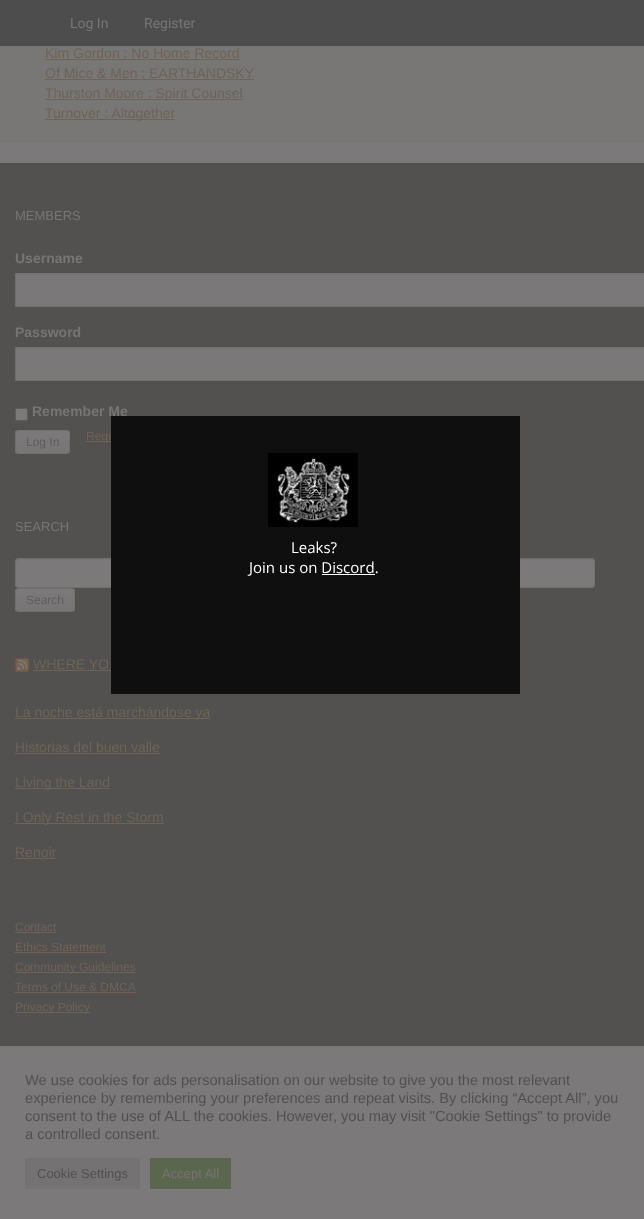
<svg xmlns="http://www.w3.org/2000/svg" width="644" height="1219" viewBox="0 0 644 1219">
  <defs>
    <clipPath id="clip1"><rect x="15" y="430" width="55" height="24" rx="3"/></clipPath>
    <linearGradient id="g1" gradientUnits="userSpaceOnUse" x1="43" y1="431" x2="43" y2="453"><stop offset="0" stop-color="#7b7979"/><stop offset="1" stop-color="#777575"/></linearGradient>
    <clipPath id="clip2"><rect x="15" y="588" width="60" height="24" rx="3"/></clipPath>
    <linearGradient id="g2" gradientUnits="userSpaceOnUse" x1="45" y1="589" x2="45" y2="611"><stop offset="0" stop-color="#7b7979"/><stop offset="1" stop-color="#777575"/></linearGradient>
  </defs>
  <rect width="100%" height="100%" fill="#7b7979"/>
  <path d="M0 0h644v46H0z" fill="#4e4d4d"/>
  <path d="M0 46h644v97H0z" fill="#797676"/>
  <path d="M45 59h195v1H45z" fill="#6d6455"/>
  <path d="M45 79h209v1H45z" fill="#6d6455"/>
  <path d="M45 99h198v1H45z" fill="#6d6455"/>
  <path d="M45 119h130v1H45z" fill="#6d6455"/>
  <path d="M0 163h644v883H0z" fill="#535050"/>
  <path d="M16 275h628v31H16z" fill="#7a7878"/>
  <path d="M16 274h628v1H16z" fill="#767474"/>
  <path d="M15.5 273.5h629v33H15.5z" fill="none" stroke="#716e6e"/>
  <path d="M16 349h628v31H16z" fill="#7a7878"/>
  <path d="M16 348h628v1H16z" fill="#767474"/>
  <path d="M15.5 347.5h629v33H15.5z" fill="none" stroke="#716e6e"/>
  <rect x="15.5" y="408.5" width="12" height="12" rx="1.5" fill="#7b7979" stroke="#605d5d"/>
  <g clip-path="url(#clip1)">
    <path d="M15 431h55v22H15z" fill="url(#g1)"/>
  </g>
  <rect x="15.5" y="430.5" width="54" height="23" rx="2.5" fill="none" stroke="#716e6e"/>
  <path d="M86 441h25v1H86z" fill="#6d6455"/>
  <rect x="15" y="558" width="580" height="30" rx="4" fill="#7b7979"/>
  <path d="M19 560H591C593 560 594 561 594 563V562C594 560 593 559 591 559H19C17 559 16 560 16 562V563C16 561 17 560 19 560Z" fill="#777575"/>
  <rect x="15.5" y="558.5" width="579" height="29" rx="3.5" fill="none" stroke="#716e6e"/>
  <g clip-path="url(#clip2)">
    <path d="M15 589h60v22H15z" fill="url(#g2)"/>
  </g>
  <rect x="15.5" y="588.5" width="59" height="23" rx="2.5" fill="none" stroke="#716e6e"/>
  <image x="15" y="658" width="14" height="14" href="img/1.png"/>
  <path d="M33 670h78v1H33z" fill="#6d6455"/>
  <path d="M15 718h195v1H15z" fill="#6d6455"/>
  <path d="M15 753h145v1H15z" fill="#6d6455"/>
  <path d="M15 788h95v1H15z" fill="#6d6455"/>
  <path d="M15 823h149v1H15z" fill="#6d6455"/>
  <path d="M15 858h41v1H15z" fill="#6d6455"/>
  <path d="M15 932h41v1H15z" fill="#6d6455"/>
  <path d="M15 952h91v1H15z" fill="#6d6455"/>
  <path d="M15 972h121v1H15z" fill="#6d6455"/>
  <path d="M15 992h121v1H15z" fill="#6d6455"/>
  <path d="M15 1012h75v1H15z" fill="#6d6455"/>
  <path d="M25 1158h115v31H25z" fill="#747272"/>
  <path d="M150 1158h81v31H150z" fill="#5b664e"/>
  <g font-family="Roboto" font-size="14" fill="#777474">
    <text x="70" y="28">Log In</text>
    <text x="144" y="28">Register</text>
  </g>
  <g font-family="Liberation Sans" font-size="14" fill="#6d6455">
    <text x="45" y="58">Kim Gordon : No Home Record</text>
    <text x="45" y="78">Of Mice &amp; Men : EARTHANDSKY</text>
    <text x="45" y="98">Thurston Moore : Spirit Counsel</text>
    <text x="45" y="118">Turnover : Altogether</text>
  </g>
  <text x="15" y="220" font-family="Liberation Sans" font-size="13" fill="#777474">MEMBERS</text>
  <g font-family="Liberation Sans" font-size="14" font-weight="bold" fill="#777474">
    <text x="15" y="263">Username</text>
    <text x="15" y="337">Password</text>
    <text x="32" y="416">Remember Me</text>
  </g>
  <text x="26" y="446" font-family="Liberation Sans" font-size="12" fill="#605d5d">Log In</text>
  <text x="86" y="440" font-family="Liberation Sans" font-size="12" fill="#6d6455">Regi</text>
  <text x="15" y="531" font-family="Liberation Sans" font-size="13" fill="#777474">SEARCH</text>
  <text x="26" y="604" font-family="Liberation Sans" font-size="12" fill="#605d5d">Search</text>
  <g font-family="Liberation Sans" font-size="14" fill="#6d6455">
    <text x="33" y="669">WHERE YO</text>
    <text x="15" y="717">La noche está marchándose ya</text>
    <text x="15" y="752">Historias del buen valle</text>
    <text x="15" y="787">Living the Land</text>
    <text x="15" y="822">I Only Rest in the Storm</text>
    <text x="15" y="857">Renoir</text>
  </g>
  <g font-family="Liberation Sans" font-size="12" fill="#6d6455">
    <text x="15" y="931">Contact</text>
    <text x="15" y="951">Ethics Statement</text>
    <text x="15" y="971">Community Guidelines</text>
    <text x="15" y="991">Terms of Use &amp; DMCA</text>
    <text x="15" y="1011">Privacy Policy</text>
  </g>
  <g font-family="Liberation Sans" font-size="14.65" fill="#525050">
    <text x="25" y="1085">We use cookies for ads personalisation on our website to give you the most relevant</text>
    <text x="25" y="1103">experience by remembering your preferences and repeat visits. By clicking “Accept All”, you</text>
    <text x="25" y="1121">consent to the use of ALL the cookies. However, you may visit "Cookie Settings" to provide</text>
    <text x="25" y="1139">a controlled consent.</text>
  </g>
  <text x="37" y="1178" font-family="Liberation Sans" font-size="13" fill="#525050">Cookie Settings</text>
  <text x="162" y="1178" font-family="Liberation Sans" font-size="13" fill="#777474">Accept All</text>
  <path d="M111 416h409v278H111z" fill="#0f0f0f"/>
  <image x="268" y="453" width="90" height="74" href="img/2.png"/>
  <g font-family="Open Sans" font-size="15" fill="#fff">
    <text x="291" y="553">Leaks?</text>
    <text x="249" y="573">Join us on Discord.</text>
  </g>
  <path d="M322 574h53v1H322z" fill="#fff"/>
</svg>
